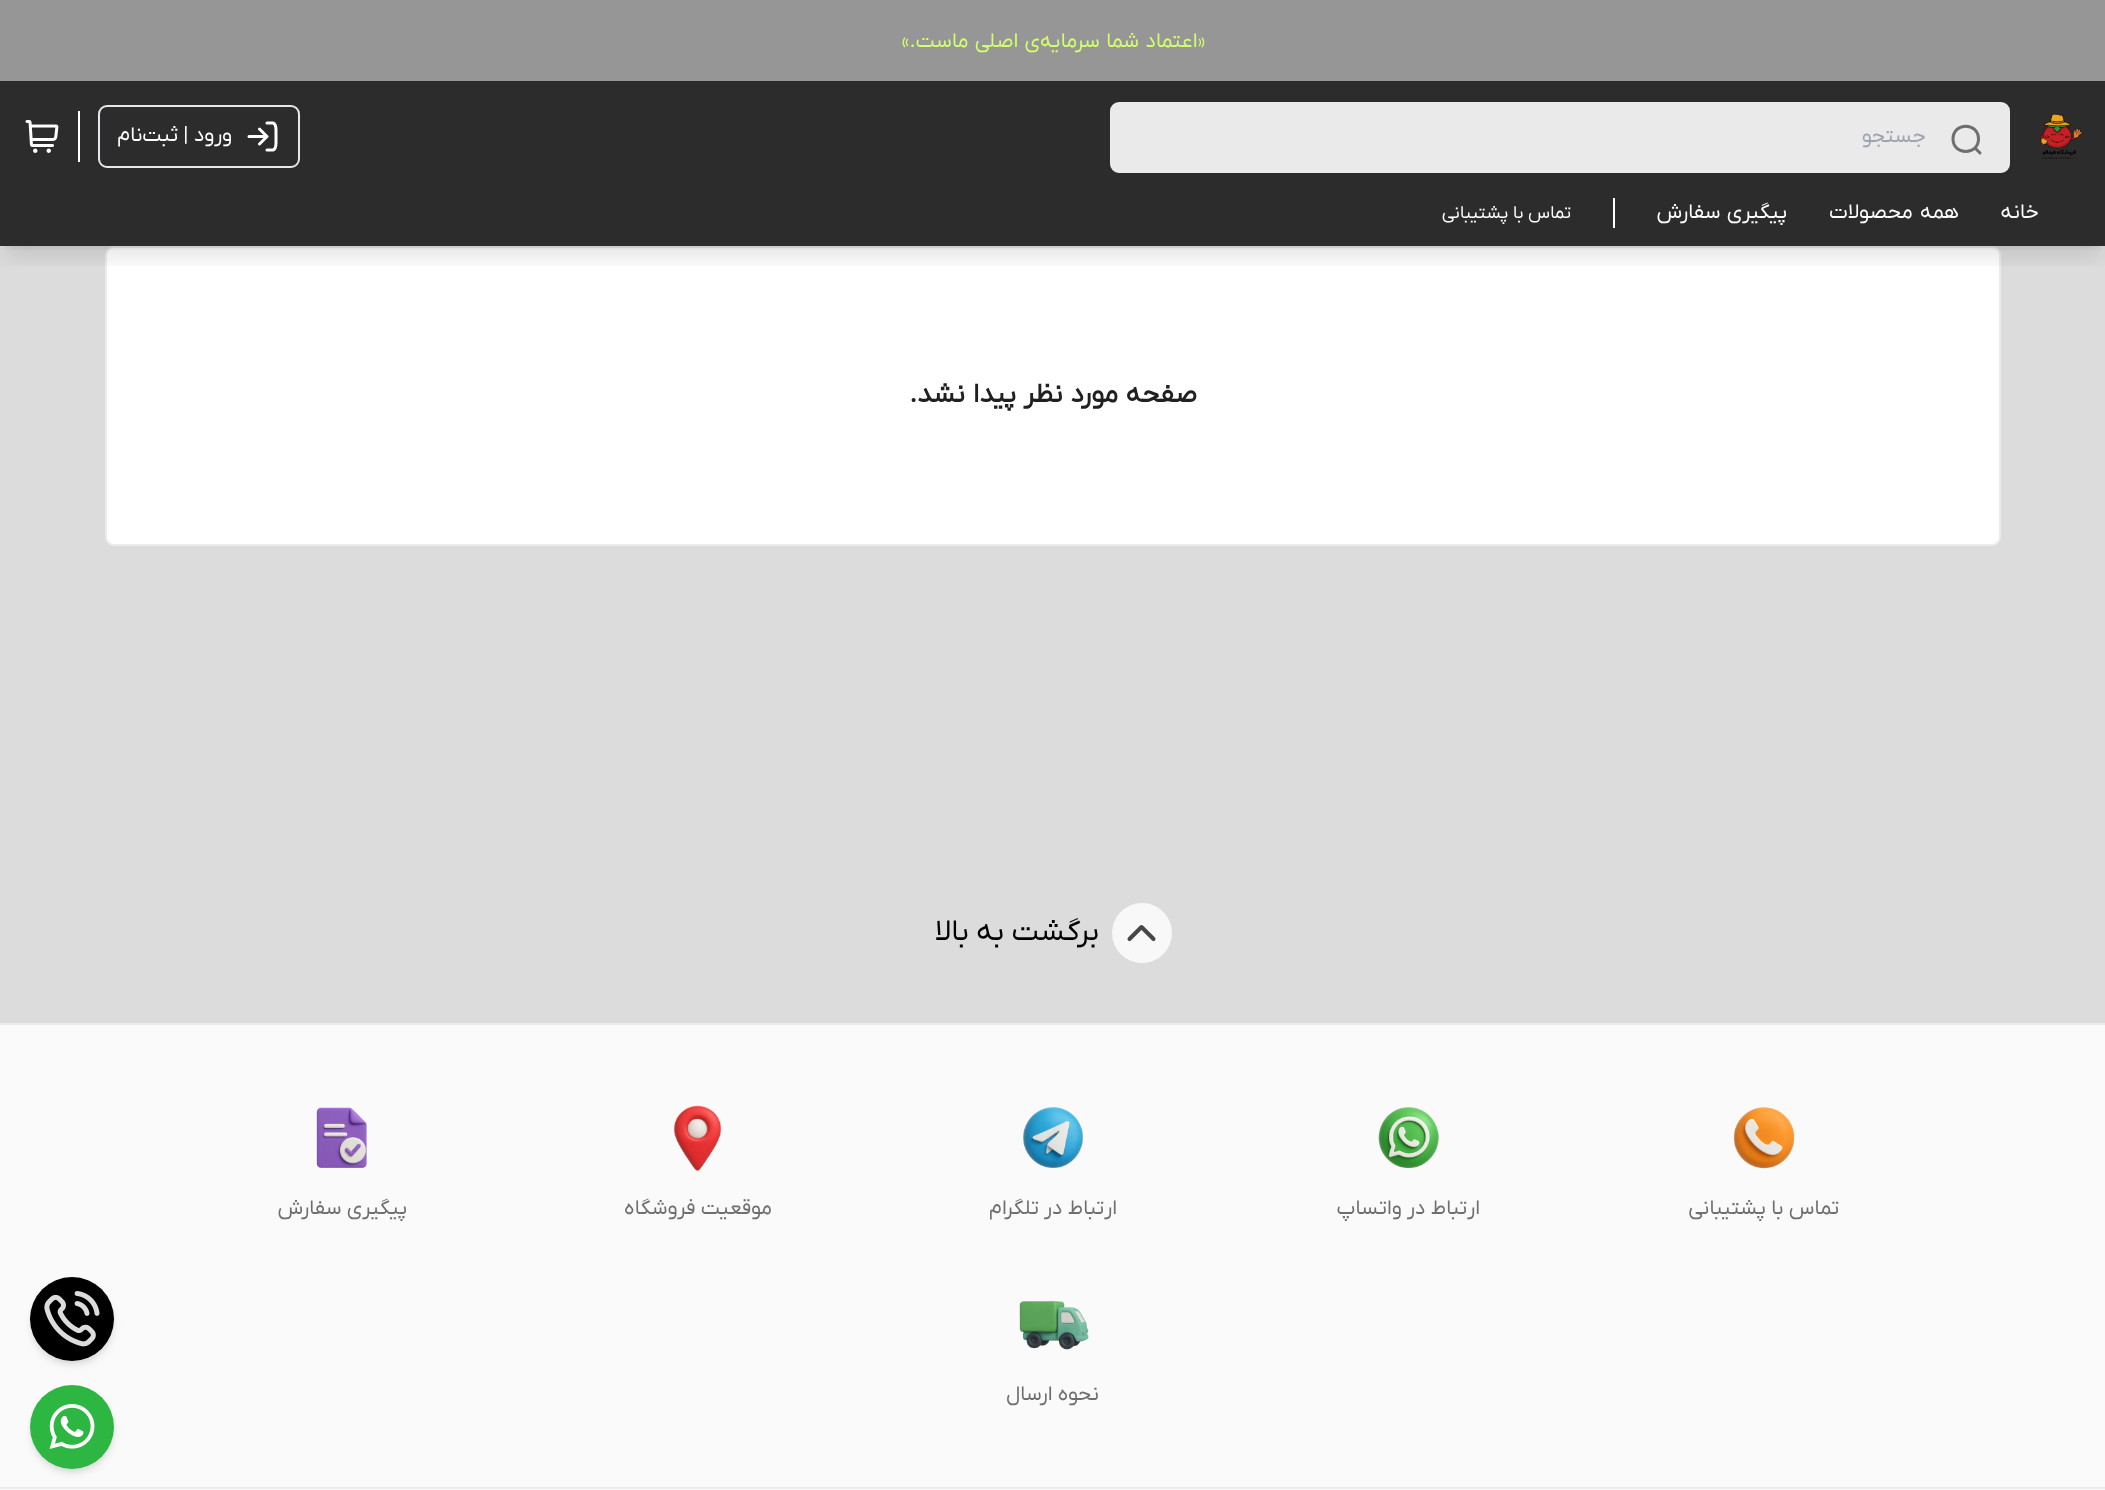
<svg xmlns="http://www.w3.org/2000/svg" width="2105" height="1490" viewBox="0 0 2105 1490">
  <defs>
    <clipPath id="clip1"><path d="M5 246h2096v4H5z"/></clipPath>
    <clipPath id="clip2"><path d="M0 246h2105v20H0z"/></clipPath>
  </defs>
  <rect width="100%" height="100%" fill="#dcdcdc"/>
  <path d="M0 81h2105v165H0z" fill="#2c2c2c"/>
  <path d="M0 0h2105v81H0z" fill="#969696"/>
  <image x="2040" y="114" width="42" height="45" href="img/1.png"/>
  <rect x="1111" y="103" width="898" height="69" rx="8" fill="#eaeaea" stroke="#ebebeb" stroke-width="2"/>
  <path d="M1980 153L1975 148M1978.5 139C1978.5 155.5 1953 155.5 1953 139C1953 122 1978.5 122 1978.5 139" fill="none" stroke="#6e6e6e" stroke-width="3" stroke-linecap="round" stroke-linejoin="round"/>
  <rect x="99" y="106" width="200" height="61" rx="8" fill="none" stroke="#e5e7eb" stroke-width="2"/>
  <path d="M267 123H273C276 124 276 127.5 276 130V143C276 145.5 276 149 273 150H267M259.5 129L267 136.5M267 136.5L259.5 144M267 136.5H249" fill="none" stroke="#fff" stroke-width="3" stroke-linecap="round" stroke-linejoin="round"/>
  <path d="M78 111h2v51H78z" fill="#fff"/>
  <image x="25" y="120" width="34" height="33" href="img/2.png"/>
  <rect x="106" y="247" width="1894" height="298" rx="8" fill="#fff" stroke="#ebebeb" stroke-width="2"/>
  <g clip-path="url(#clip1)">
    <path d="M6 204h2094v42H6z" fill="#0000001a" filter="blur(4.5px)"/>
  </g>
  <g clip-path="url(#clip2)">
    <path d="M5 212h2097v45H5z" fill="#0000001a" filter="blur(11px)"/>
  </g>
  <path d="M1613 198h2v30H1613z" fill="#fff"/>
  <circle cx="1142" cy="933" r="30" fill="#f8f8f8"/>
  <path d="M1153.5 939L1141.5 927L1129.5 939" fill="none" stroke="#464646" stroke-width="4" stroke-linecap="round" stroke-linejoin="round"/>
  <path d="M0 1025h2105v462H0z" fill="#fafafa"/>
  <path d="M0 1023h2105v2H0z" fill="#ebebeb"/>
  <image x="1734" y="1107" width="61" height="62" href="img/3.png"/>
  <image x="1378" y="1107" width="61" height="61" href="img/4.png"/>
  <image x="1023" y="1107" width="61" height="61" href="img/5.png"/>
  <image x="674" y="1105" width="47" height="66" href="img/6.png"/>
  <image x="316" y="1107" width="51" height="61" href="img/7.png"/>
  <image x="1019" y="1301" width="70" height="49" href="img/8.png"/>
  <path d="M0 1489h2105v1H0z" fill="#fff"/>
  <path d="M0 1487h2105v2H0z" fill="#ebebeb"/>
  <rect x="33" y="1283" width="78" height="78" rx="39" fill="#0000001a" filter="blur(3px)"/>
  <rect x="32" y="1284" width="81" height="81" rx="40.5" fill="#0000001a" filter="blur(4.5px)"/>
  <circle cx="72" cy="1319" r="42" fill="#000"/>
  <image x="44" y="1291" width="56" height="56" href="img/9.png"/>
  <rect x="33" y="1391" width="78" height="78" rx="39" fill="#0000001a" filter="blur(3px)"/>
  <rect x="32" y="1392" width="81" height="81" rx="40.5" fill="#0000001a" filter="blur(4.5px)"/>
  <circle cx="72" cy="1427" r="42" fill="#2db742"/>
  <image x="49" y="1404" width="46" height="45" href="img/10.png"/>
  <text x="1205" y="47" word-spacing="1" font-family="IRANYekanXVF" font-size="21" direction="rtl" fill="#d2ff6b">«اعتماد شما سرمایه‌ی اصلی ماست.»</text>
  <text x="1926" y="142" font-family="IRANYekanXVF" font-size="21" direction="rtl" fill="#9ca3af">جستجو</text>
  <g font-family="IRANYekanXVF" font-size="21" direction="rtl" fill="#fff">
    <text x="232" y="141">ورود | ثبت‌نام</text>
    <text x="2039" y="218">خانه</text>
    <text x="1959" y="218" word-spacing="2">همه محصولات</text>
    <text x="1787" y="218" word-spacing="1">پیگیری سفارش</text>
  </g>
  <text x="1571" y="218" font-family="IRANYekanXVF" font-size="18" direction="rtl" fill="#fff">تماس با پشتیبانی</text>
  <text x="1197" y="402" word-spacing="1" font-family="IRANYekanXVF" font-size="27" font-weight="bold" direction="rtl" fill="#202021">صفحه مورد نظر پیدا نشد.</text>
  <text x="1099" y="940" font-family="IRANYekanXVF" font-size="30" direction="rtl" fill="#000">برگشت به بالا</text>
  <g font-family="IRANYekanXVF" font-size="21" direction="rtl" fill="#6e6e6e">
    <text x="1839" y="1214">تماس با پشتیبانی</text>
    <text x="1480" y="1214">ارتباط در واتساپ</text>
    <text x="1117" y="1214">ارتباط در تلگرام</text>
    <text x="772" y="1214">موقعیت فروشگاه</text>
    <text x="407" y="1214">پیگیری سفارش</text>
    <text x="1099" y="1400">نحوه ارسال</text>
  </g>
</svg>
